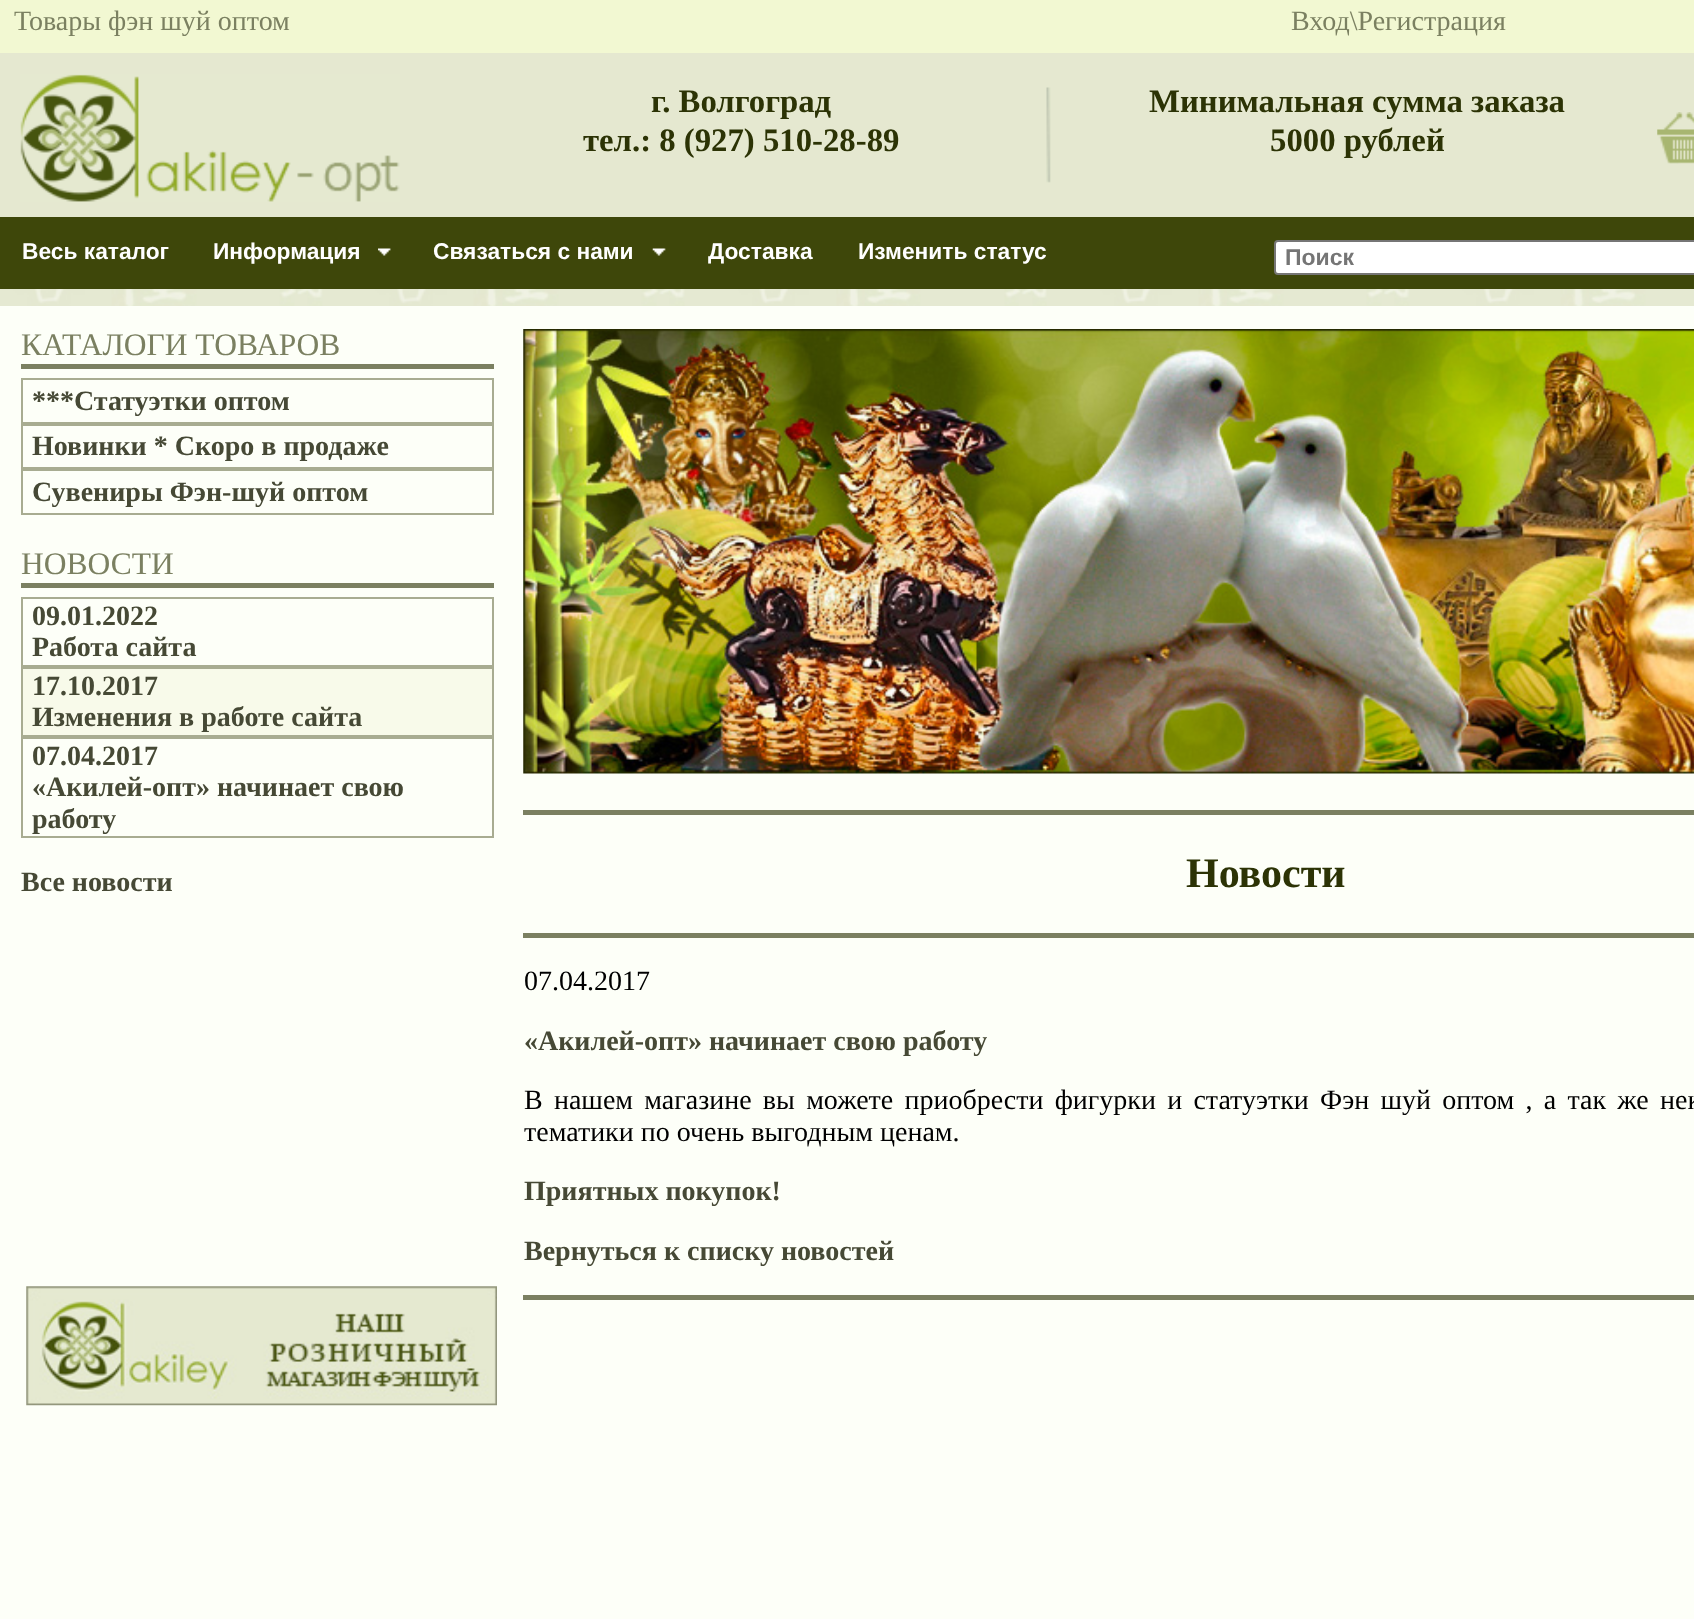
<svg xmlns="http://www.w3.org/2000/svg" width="1694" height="1619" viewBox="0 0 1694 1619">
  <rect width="100%" height="100%" fill="#fff"/>
  <image x="0" y="289" width="1694" height="17" href="img/1.png"/>
  <path d="M0 0h1694v53H0z" fill="#f2f8d2"/>
  <path d="M0 53h1694v164H0z" fill="#e5e8d0"/>
  <image x="20" y="74" width="380" height="128" href="img/2.png"/>
  <image x="1046" y="87" width="5" height="96" href="img/3.png"/>
  <image x="1657" y="112" width="37" height="52" href="img/4.png"/>
  <path d="M0 217h1694v72H0z" fill="#3e470a"/>
  <image x="378" y="248" width="13" height="8" href="img/5.png"/>
  <image x="652" y="248" width="14" height="8" href="img/6.png"/>
  <rect x="1275" y="241" width="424" height="33" rx="3" fill="#fff" stroke="#767676" stroke-width="2"/>
  <path d="M0 306h1694v1313H0z" fill="#fdfff8"/>
  <path d="M21 364h473v5H21z" fill="#7b8061"/>
  <path d="M22 379h471v44H22z" fill="none" stroke="#a8ac91" stroke-width="2"/>
  <path d="M22 425h471v43H22z" fill="none" stroke="#a8ac91" stroke-width="2"/>
  <path d="M22 470h471v44H22z" fill="none" stroke="#a8ac91" stroke-width="2"/>
  <path d="M21 583h473v5H21z" fill="#7b8061"/>
  <path d="M22 598h471v68H22z" fill="none" stroke="#a8ac91" stroke-width="2"/>
  <path d="M22 668h471v68H22z" fill="#f8faea" stroke="#a8ac91" stroke-width="2"/>
  <path d="M22 738h471v99H22z" fill="none" stroke="#a8ac91" stroke-width="2"/>
  <image x="26" y="1286" width="471" height="120" href="img/7.png"/>
  <image x="523" y="329" width="1171" height="445" href="img/8.png"/>
  <path d="M523 810h1171v5H523z" fill="#7b8061"/>
  <path d="M523 933h1171v5H523z" fill="#7b8061"/>
  <path d="M523 1295h1171v5H523z" fill="#7b8061"/>
  <g font-family="Liberation Serif" font-size="28" fill="#7b8061">
    <text x="14" y="30">Товары фэн шуй оптом</text>
    <text x="1291" y="30">Вход\Регистрация</text>
  </g>
  <g font-family="Liberation Serif" font-size="32.75" font-weight="bold" fill="#2c3305">
    <text x="651" y="112">г. Волгоград</text>
    <text x="583" y="151">тел.: 8 (927) 510-28-89</text>
    <text x="1149" y="112">Минимальная сумма заказа</text>
    <text x="1270" y="151">5000 рублей</text>
  </g>
  <g font-family="Liberation Sans" font-size="22.75" font-weight="bold" fill="#fff">
    <text x="22" y="259">Весь каталог</text>
    <text x="213" y="259">Информация</text>
    <text x="433" y="259">Связаться с нами</text>
    <text x="708" y="259">Доставка</text>
    <text x="858" y="259">Изменить статус</text>
  </g>
  <text x="1285" y="265" font-family="Liberation Sans" font-size="23" font-weight="bold" fill="#757575">Поиск</text>
  <text x="21" y="355" font-family="Liberation Serif" font-size="31.5" fill="#7b8061">КАТАЛОГИ ТОВАРОВ</text>
  <g font-family="Liberation Serif" font-size="28" font-weight="bold" fill="#464935">
    <text x="32" y="410">***Статуэтки оптом</text>
    <text x="32" y="455">Новинки * Скоро в продаже</text>
    <text x="32" y="501">Сувениры Фэн-шуй оптом</text>
  </g>
  <text x="21" y="574" font-family="Liberation Serif" font-size="31.5" fill="#7b8061">НОВОСТИ</text>
  <g font-family="Liberation Serif" font-size="28" font-weight="bold" fill="#464935">
    <text x="32" y="625">09.01.2022</text>
    <text x="32" y="656">Работа сайта</text>
    <text x="32" y="695">17.10.2017</text>
    <text x="32" y="726">Изменения в работе сайта</text>
    <text x="32" y="765">07.04.2017</text>
    <text x="32" y="796">«Акилей-опт» начинает свою</text>
    <text x="32" y="828">работу</text>
    <text x="21" y="891">Все новости</text>
  </g>
  <text x="1186" y="887" font-family="Liberation Serif" font-size="42" font-weight="bold" fill="#2c3305">Новости</text>
  <text x="524" y="990" font-family="Liberation Serif" font-size="28" fill="#000">07.04.2017</text>
  <text x="524" y="1050" font-family="Liberation Serif" font-size="28" font-weight="bold" fill="#464935">«Акилей-опт» начинает свою работу</text>
  <g font-family="Liberation Serif" font-size="28" fill="#000">
    <text x="524" y="1109" word-spacing="4.25">В нашем магазине вы можете приобрести фигурки и статуэтки Фэн шуй оптом , а так же нек</text>
    <text x="524" y="1141">тематики по очень выгодным ценам.</text>
  </g>
  <g font-family="Liberation Serif" font-size="28" font-weight="bold" fill="#464935">
    <text x="524" y="1200">Приятных покупок!</text>
    <text x="524" y="1260">Вернуться к списку новостей</text>
  </g>
</svg>
